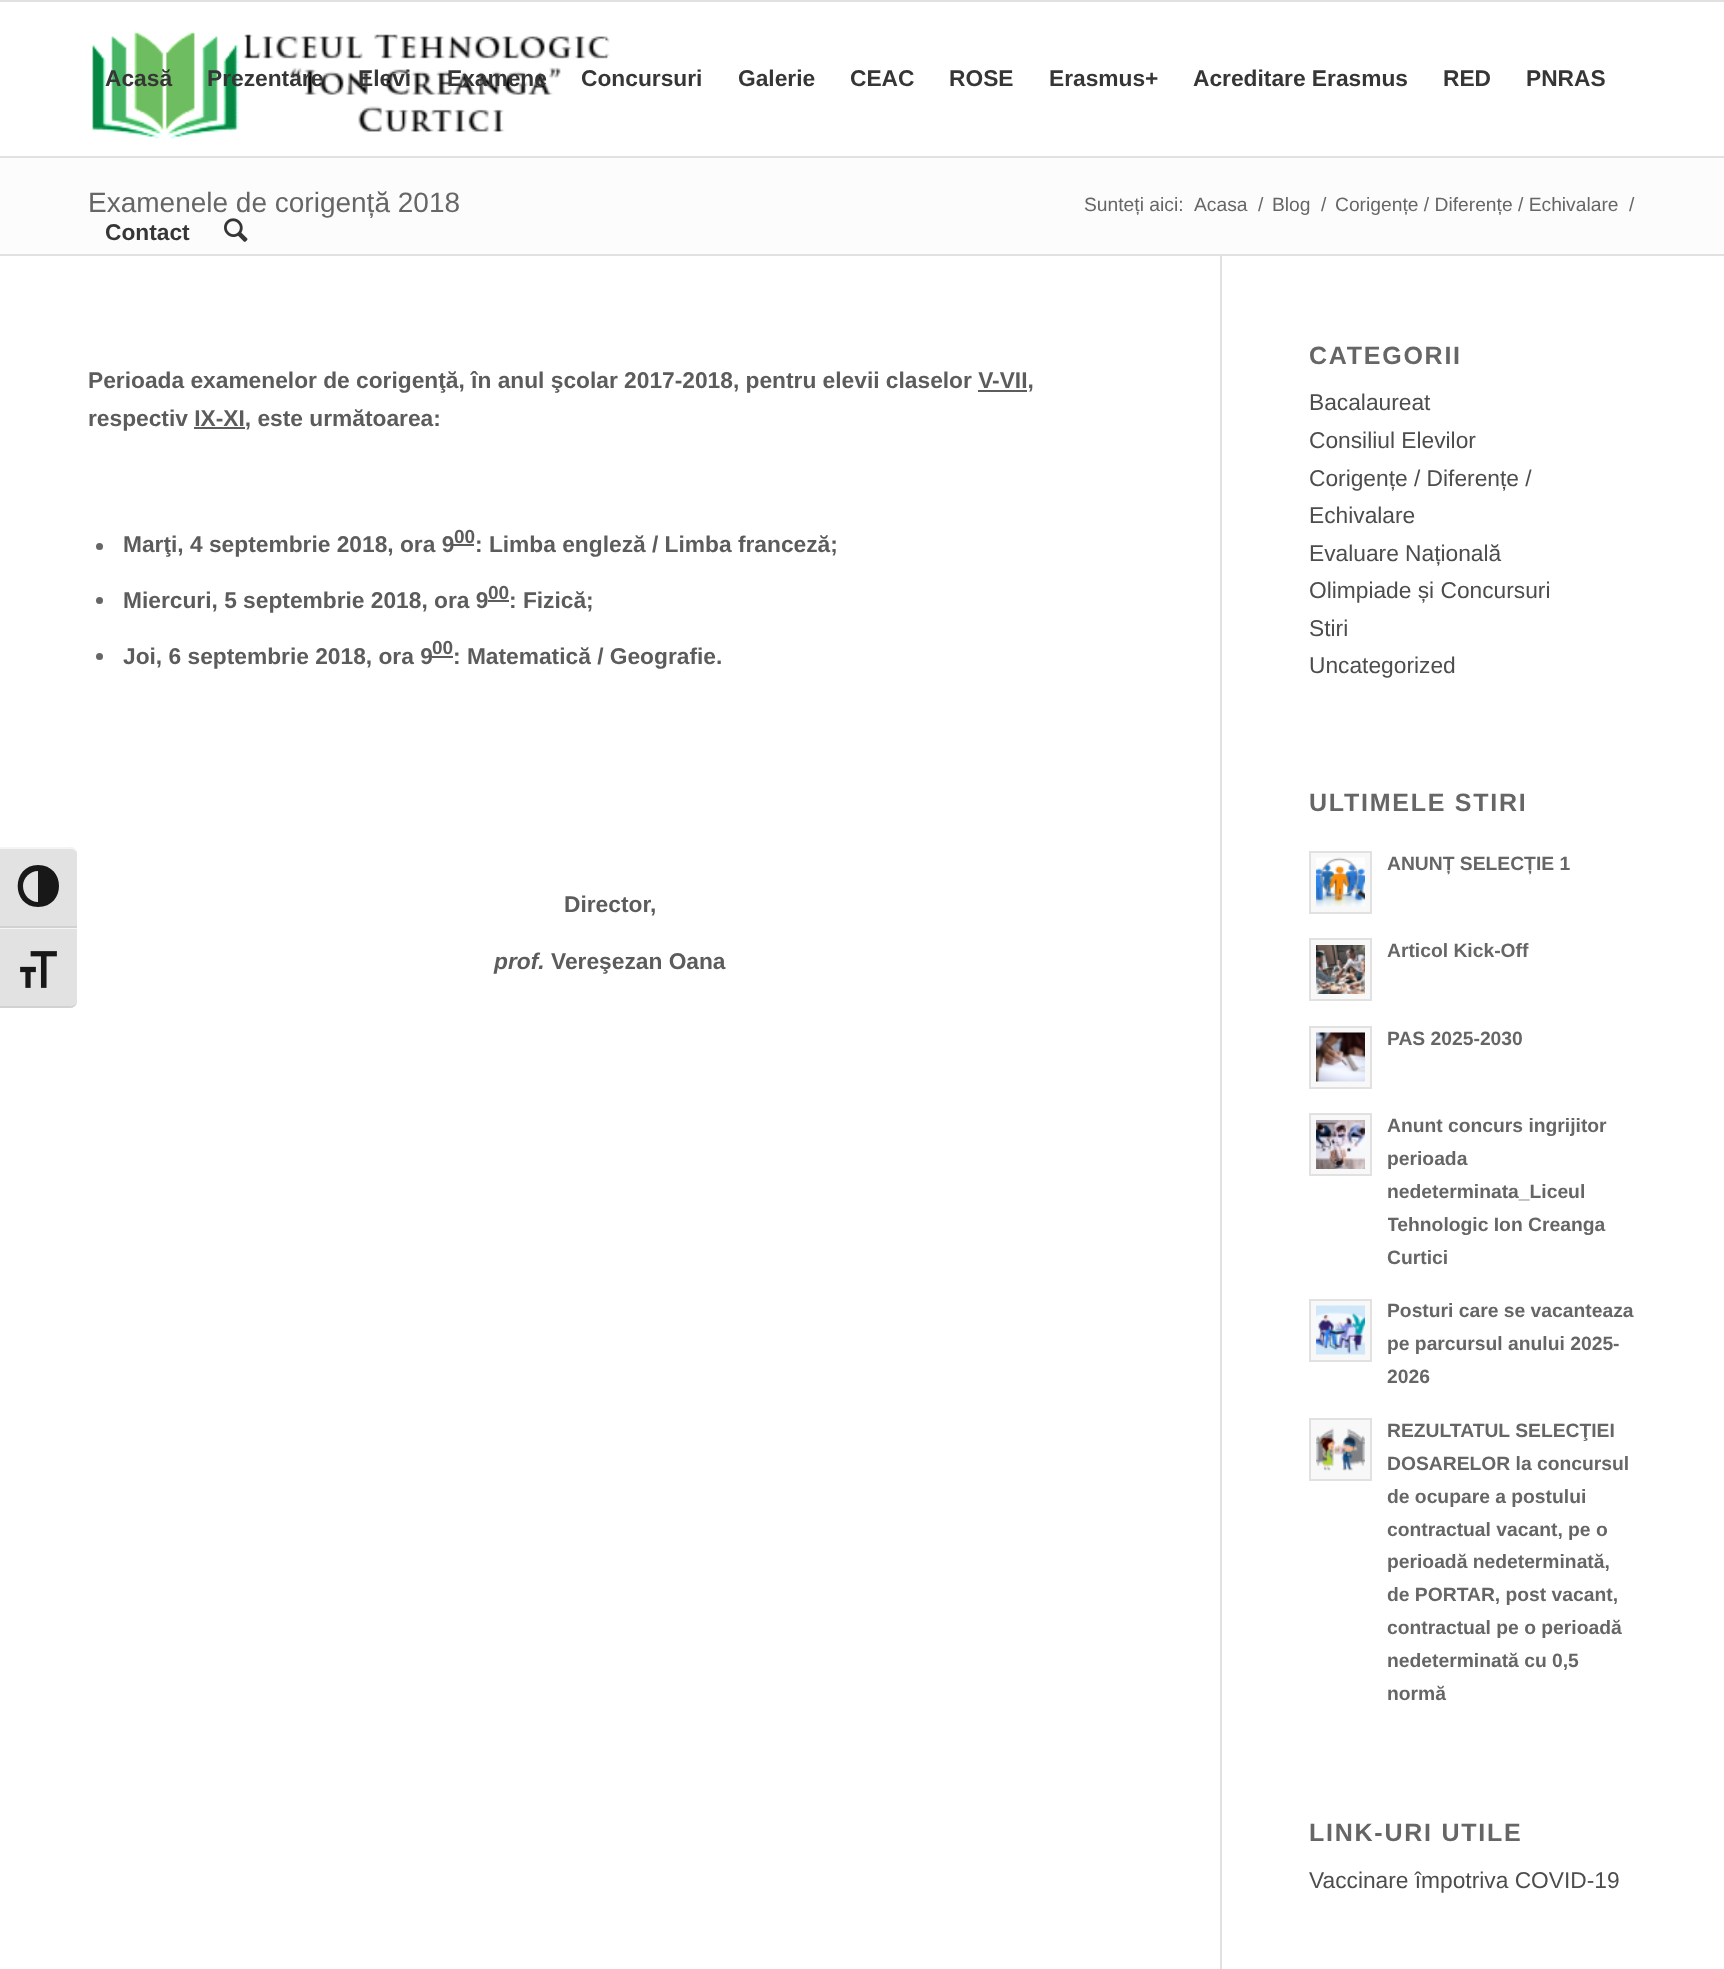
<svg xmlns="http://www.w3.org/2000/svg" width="1724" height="1969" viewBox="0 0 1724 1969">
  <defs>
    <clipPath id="clip1"><path d="M1388 1110h250v164H1388z"/></clipPath>
  </defs>
  <rect width="100%" height="100%" fill="#fff"/>
  <path d="M0 847H70C74 847 77 850 77 854V928H0Z" fill="#e2e2e2"/>
  <path d="M0 847V849H70C74 849 77 851 77 854C77 850 74 847 70 847Z" fill="#f5f5f5"/>
  <path d="M0 926h77v2H0z" fill="#d2d2d2"/>
  <path d="M38 865C11 865 11 907 38 907C66 907 66 865 38 865ZM23 886C23 878 30 871 38 871V902C30 902 23 895 23 886Z" fill="#181818"/>
  <path d="M0 928H77V1001C77 1005 74 1008 70 1008H0Z" fill="#e2e2e2"/>
  <path d="M0 928h77v1H0z" fill="#f5f5f5"/>
  <path d="M0 1006V1008H70C74 1008 77 1005 77 1001C77 1004 74 1006 70 1006Z" fill="#d2d2d2"/>
  <image x="20" y="951" width="37" height="37" href="img/1.png"/>
  <path d="M0 0h1724v2H0z" fill="#e1e1e1"/>
  <path d="M0 156h1724v2H0z" fill="#e1e1e1"/>
  <image x="92" y="31" width="518" height="108" href="img/2.png"/>
  <path d="M0 158h1724v96H0z" fill="#fcfcfc"/>
  <image x="224" y="218" width="24" height="24" href="img/3.png"/>
  <path d="M0 254h1724v2H0z" fill="#e1e1e1"/>
  <path d="M978 390h49v2H978z" fill="#5c5c5c"/>
  <path d="M194 427h51v2H194z" fill="#5c5c5c"/>
  <circle cx="99.5" cy="546.5" r="3.5" fill="#666"/>
  <path d="M453 544h21v2H453z" fill="#5c5c5c"/>
  <circle cx="99.5" cy="600.5" r="3.5" fill="#666"/>
  <path d="M488 600h21v2H488z" fill="#5c5c5c"/>
  <circle cx="99.5" cy="656.5" r="3.5" fill="#666"/>
  <path d="M432 656h21v2H432z" fill="#5c5c5c"/>
  <path d="M1220 256h2v1713H1220z" fill="#e1e1e1"/>
  <path d="M1310 852h61v61H1310z" fill="#f8f8f8" stroke="#e1e1e1" stroke-width="2"/>
  <image x="1316" y="857" width="49" height="50" href="img/4.png"/>
  <path d="M1310 939h61v61H1310z" fill="#f8f8f8" stroke="#e1e1e1" stroke-width="2"/>
  <image x="1316" y="945" width="49" height="49" href="img/5.png"/>
  <path d="M1310 1027h61v61H1310z" fill="#f8f8f8" stroke="#e1e1e1" stroke-width="2"/>
  <image x="1316" y="1032" width="49" height="50" href="img/6.png"/>
  <path d="M1310 1114h61v61H1310z" fill="#f8f8f8" stroke="#e1e1e1" stroke-width="2"/>
  <image x="1316" y="1120" width="49" height="49" href="img/7.png"/>
  <path d="M1310 1300h61v61H1310z" fill="#f8f8f8" stroke="#e1e1e1" stroke-width="2"/>
  <image x="1316" y="1305" width="49" height="50" href="img/8.png"/>
  <path d="M1310 1419h61v61H1310z" fill="#f8f8f8" stroke="#e1e1e1" stroke-width="2"/>
  <image x="1316" y="1428" width="49" height="43" href="img/9.png"/>
  <g font-family="Liberation Sans" font-size="22.75" font-weight="bold" fill="#363636">
    <text x="105" y="86">Acasă</text>
    <text x="207" y="86">Prezentare</text>
    <text x="358" y="86">Elevi</text>
    <text x="447" y="86">Examene</text>
    <text x="581" y="86">Concursuri</text>
    <text x="738" y="86">Galerie</text>
    <text x="850" y="86">CEAC</text>
    <text x="949" y="86">ROSE</text>
    <text x="1049" y="86">Erasmus+</text>
    <text x="1193" y="86">Acreditare Erasmus</text>
    <text x="1443" y="86">RED</text>
    <text x="1526" y="86">PNRAS</text>
    <text x="105" y="240">Contact</text>
  </g>
  <text x="88" y="212" font-family="Liberation Sans" font-size="28" fill="#666">Examenele de corigență 2018</text>
  <g font-family="Liberation Sans" font-size="19.25" fill="#666">
    <text x="1084" y="211">Sunteți aici:</text>
    <text x="1194" y="211">Acasa</text>
    <text x="1258" y="211">/</text>
    <text x="1272" y="211">Blog</text>
    <text x="1321" y="211">/</text>
    <text x="1335" y="211">Corigențe / Diferențe / Echivalare</text>
    <text x="1629" y="211">/</text>
  </g>
  <g font-family="Liberation Sans" font-size="22.75" font-weight="bold" fill="#5c5c5c">
    <text x="88" y="388">Perioada examenelor de corigenţă, în anul şcolar 2017-2018, pentru elevii claselor V-VII,</text>
    <text x="88" y="426">respectiv IX-XI, este următoarea:</text>
    <text x="123" y="552">Marţi, 4 septembrie 2018, ora 9</text>
  </g>
  <text x="454" y="543" font-family="Liberation Sans" font-size="19" font-weight="bold" fill="#5c5c5c">00</text>
  <g font-family="Liberation Sans" font-size="22.75" font-weight="bold" fill="#5c5c5c">
    <text x="475" y="552">: Limba engleză / Limba franceză;</text>
    <text x="123" y="608">Miercuri, 5 septembrie 2018, ora 9</text>
  </g>
  <text x="488" y="599" font-family="Liberation Sans" font-size="19" font-weight="bold" fill="#5c5c5c">00</text>
  <g font-family="Liberation Sans" font-size="22.75" font-weight="bold" fill="#5c5c5c">
    <text x="509" y="608">: Fizică;</text>
    <text x="123" y="664">Joi, 6 septembrie 2018, ora 9</text>
  </g>
  <text x="432" y="654" font-family="Liberation Sans" font-size="19" font-weight="bold" fill="#5c5c5c">00</text>
  <g font-family="Liberation Sans" font-size="22.75" font-weight="bold" fill="#5c5c5c">
    <text x="453" y="664">: Matematică / Geografie.</text>
    <text x="564" y="912">Director,</text>
  </g>
  <text x="494" y="969" font-family="Liberation Sans" font-size="22.75" font-weight="bold" font-style="italic" fill="#5c5c5c">prof.</text>
  <text x="551" y="969" font-family="Liberation Sans" font-size="22.75" font-weight="bold" fill="#5c5c5c">Vereşezan Oana</text>
  <text x="1309" y="364" font-family="Liberation Sans" font-size="25" font-weight="bold" letter-spacing="1.75" fill="#666">CATEGORII</text>
  <g font-family="Liberation Sans" font-size="22.75" fill="#4d4d4d">
    <text x="1309" y="410">Bacalaureat</text>
    <text x="1309" y="448">Consiliul Elevilor</text>
    <text x="1309" y="486">Corigențe / Diferențe /</text>
    <text x="1309" y="523">Echivalare</text>
    <text x="1309" y="561">Evaluare Națională</text>
    <text x="1309" y="598">Olimpiade și Concursuri</text>
    <text x="1309" y="636">Stiri</text>
    <text x="1309" y="673">Uncategorized</text>
  </g>
  <text x="1309" y="811" font-family="Liberation Sans" font-size="25" font-weight="bold" letter-spacing="1.75" fill="#666">ULTIMELE STIRI</text>
  <g font-family="Liberation Sans" font-size="19.3" font-weight="bold" fill="#666">
    <text x="1387" y="870">ANUNȚ SELECȚIE 1</text>
    <text x="1387" y="957">Articol Kick-Off</text>
    <text x="1387" y="1045">PAS 2025-2030</text>
    <text x="1387" y="1132">Anunt concurs ingrijitor</text>
    <text x="1387" y="1165">perioada</text>
    <text x="1387" y="1198">nedeterminata_Liceul</text>
  </g>
  <g clip-path="url(#clip1)">
    <text x="1387" y="1231" font-family="Liberation Sans" font-size="19.3" font-weight="bold" fill="#666">Tehnologic Ion Creanga</text>
  </g>
  <g font-family="Liberation Sans" font-size="19.3" font-weight="bold" fill="#666">
    <text x="1387" y="1264">Curtici</text>
    <text x="1387" y="1317">Posturi care se vacanteaza</text>
    <text x="1387" y="1350">pe parcursul anului 2025-</text>
    <text x="1387" y="1383">2026</text>
    <text x="1387" y="1437">REZULTATUL SELECŢIEI</text>
    <text x="1387" y="1470">DOSARELOR la concursul</text>
    <text x="1387" y="1503">de ocupare a postului</text>
    <text x="1387" y="1536">contractual vacant, pe o</text>
    <text x="1387" y="1568">perioadă nedeterminată,</text>
    <text x="1387" y="1601">de PORTAR, post vacant,</text>
    <text x="1387" y="1634">contractual pe o perioadă</text>
    <text x="1387" y="1667">nedeterminată cu 0,5</text>
    <text x="1387" y="1700">normă</text>
  </g>
  <text x="1309" y="1841" font-family="Liberation Sans" font-size="25" font-weight="bold" letter-spacing="1.75" fill="#666">LINK-URI UTILE</text>
  <text x="1309" y="1888" font-family="Liberation Sans" font-size="22.75" fill="#4d4d4d">Vaccinare împotriva COVID-19</text>
</svg>
